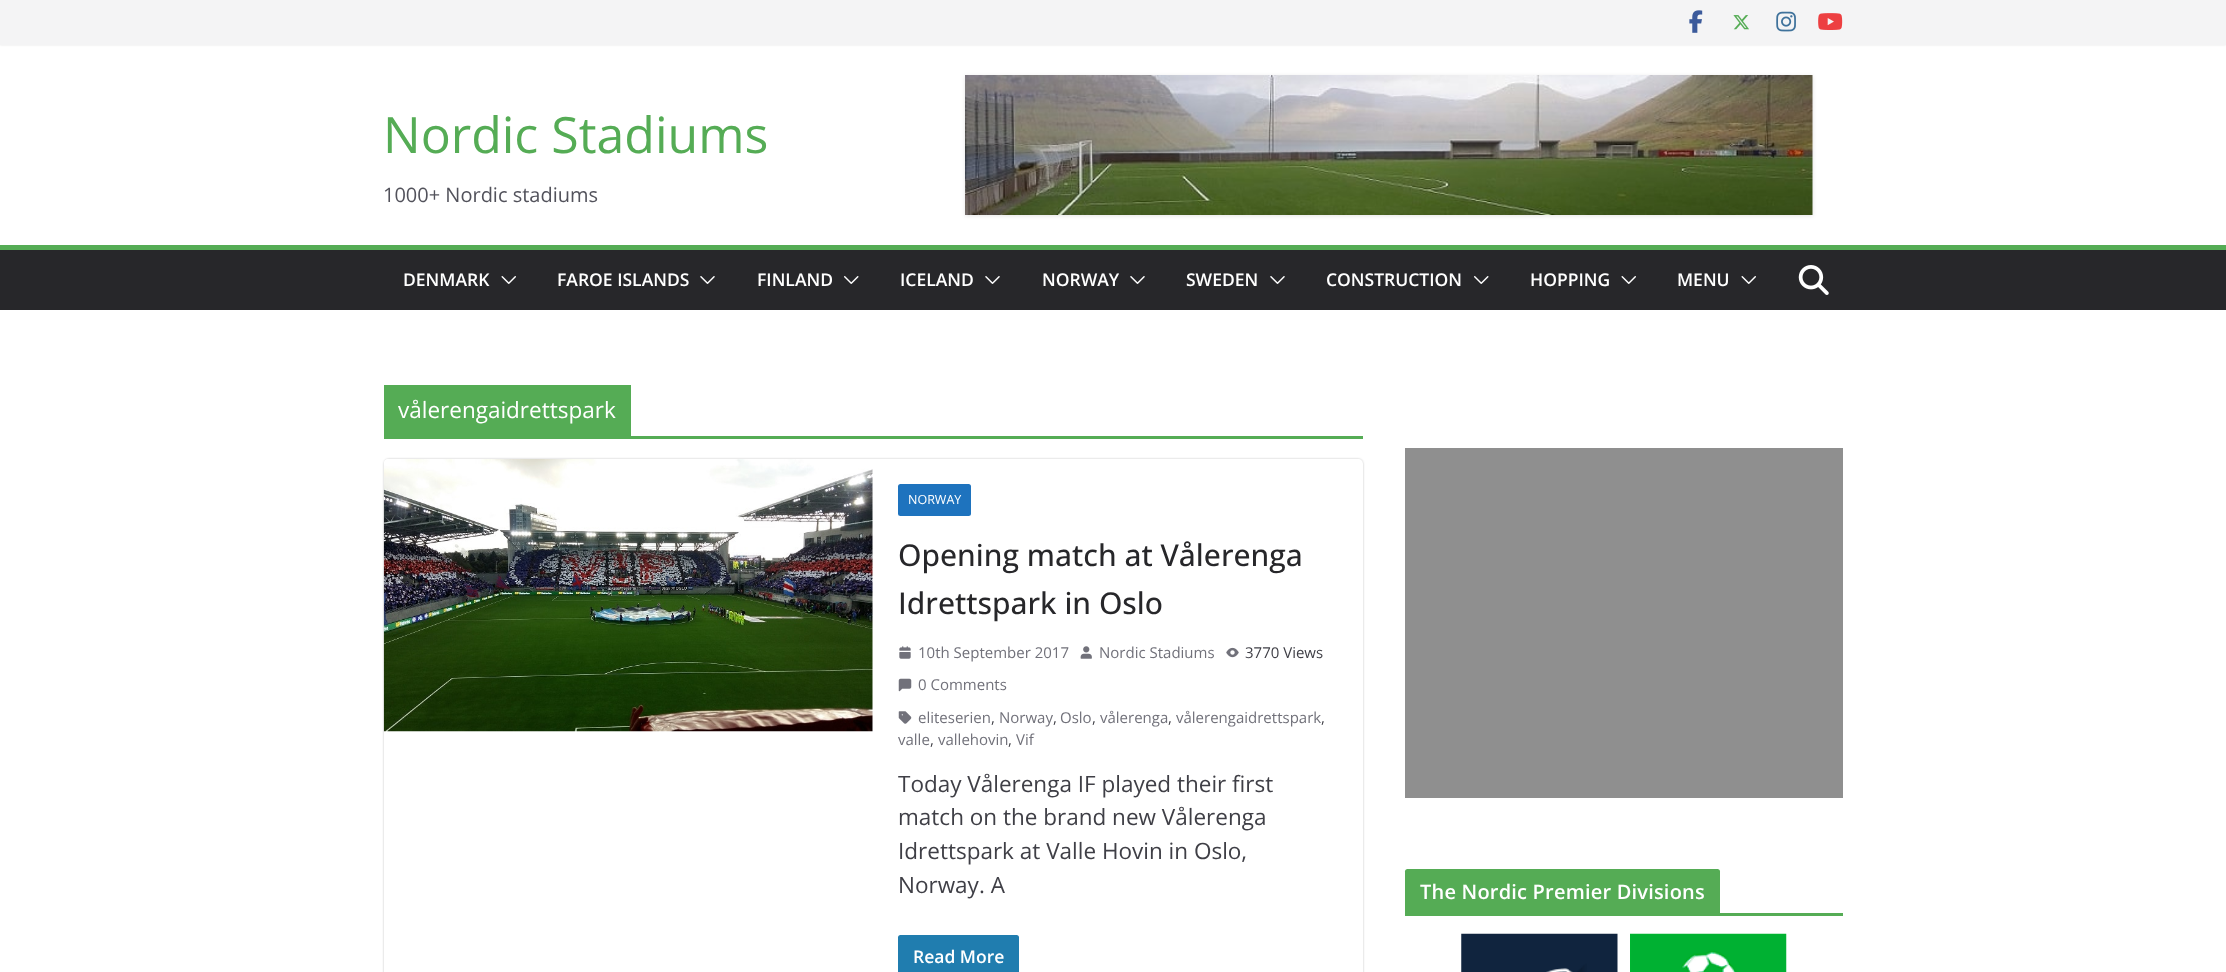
<svg xmlns="http://www.w3.org/2000/svg" width="2226" height="972" viewBox="0 0 2226 972">
  <defs>
    <clipPath id="clip1"><path d="M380 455H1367V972H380ZM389 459H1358C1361 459 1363 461 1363 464V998C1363 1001 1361 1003 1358 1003H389C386 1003 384 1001 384 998V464C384 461 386 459 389 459Z" clip-rule="evenodd"/></clipPath>
  </defs>
  <rect width="100%" height="100%" fill="#fff"/>
  <path d="M0 0h2226v45H0z" fill="#0000001a" filter="blur(1px)"/>
  <path d="M0 0h2226v45H0z" fill="#f4f4f5"/>
  <image x="1689" y="10" width="14" height="23" href="img/1.png"/>
  <image x="1733" y="15" width="16" height="15" href="img/2.png"/>
  <image x="1776" y="11" width="20" height="21" href="img/3.png"/>
  <image x="1818" y="13" width="25" height="17" href="img/4.png"/>
  <path d="M965 76h848v140H965z" fill="#0000001a" filter="blur(2px)"/>
  <image x="965" y="75" width="848" height="140" href="img/5.png"/>
  <path d="M0 250h2226v60H0z" fill="#27272a"/>
  <path d="M0 245h2226v5H0z" fill="#55ac55"/>
  <image x="501" y="276" width="15" height="8" href="img/6.png"/>
  <image x="700" y="276" width="15" height="8" href="img/7.png"/>
  <image x="844" y="276" width="15" height="8" href="img/8.png"/>
  <image x="985" y="276" width="15" height="8" href="img/7.png"/>
  <image x="1130" y="276" width="15" height="8" href="img/7.png"/>
  <image x="1270" y="276" width="15" height="8" href="img/7.png"/>
  <image x="1474" y="276" width="15" height="8" href="img/8.png"/>
  <image x="1621" y="276" width="15" height="8" href="img/6.png"/>
  <image x="1741" y="276" width="15" height="8" href="img/6.png"/>
  <image x="1798" y="265" width="31" height="30" href="img/9.png"/>
  <path d="M384 436h979v3H384z" fill="#55ac55"/>
  <path d="M384 385h247v51H384z" fill="#55ac55"/>
  <g clip-path="url(#clip1)">
    <rect x="384" y="459" width="979" height="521" rx="5" fill="#0000003d" filter="blur(1px)"/>
  </g>
  <image x="383" y="459" width="490" height="273" href="img/10.png"/>
  <rect x="898" y="484" width="73" height="32" rx="2.5" fill="#1e73be"/>
  <image x="899" y="646" width="12" height="13" href="img/11.png"/>
  <image x="1080" y="646" width="12" height="13" href="img/12.png"/>
  <image x="1226" y="647" width="13" height="11" href="img/13.png"/>
  <image x="898" y="678" width="14" height="14" href="img/14.png"/>
  <image x="898" y="711" width="14" height="13" href="img/15.png"/>
  <rect x="898" y="935" width="121" height="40" rx="2.5" fill="#207daf"/>
  <path d="M1405 448h438v350H1405z" fill="#8f8f8f"/>
  <path d="M1405 913h438v3H1405z" fill="#55ac55"/>
  <path d="M1407.5 869H1717.5C1719 869 1720 870 1720 871.5V913H1405V871.5C1405 870 1406 869 1407.5 869Z" fill="#55ac55"/>
  <image x="1461" y="933" width="157" height="39" href="img/16.png"/>
  <image x="1630" y="933" width="157" height="39" href="img/17.png"/>
  <text x="383" y="153" font-family="Open Sans" font-size="50" fill="#55ac55">Nordic Stadiums</text>
  <text x="383" y="202" font-family="Open Sans" font-size="20" fill="#52525b">1000+ Nordic stadiums</text>
  <g font-family="Open Sans" font-size="17.5" font-weight="600" fill="#fff">
    <text x="403" y="286">DENMARK</text>
    <text x="557" y="286">FAROE ISLANDS</text>
    <text x="757" y="286">FINLAND</text>
    <text x="900" y="286">ICELAND</text>
    <text x="1042" y="286">NORWAY</text>
    <text x="1186" y="286">SWEDEN</text>
    <text x="1326" y="286">CONSTRUCTION</text>
    <text x="1530" y="286">HOPPING</text>
    <text x="1677" y="286">MENU</text>
  </g>
  <text x="398" y="418" font-family="Open Sans" font-size="22.5" fill="#fff">vålerengaidrettspark</text>
  <text x="908" y="504" font-family="Open Sans" font-size="12.5" fill="#fff">NORWAY</text>
  <g font-family="Open Sans" font-size="30" font-weight="500" fill="#27272a">
    <text x="898" y="566">Opening match at Vålerenga</text>
    <text x="898" y="614">Idrettspark in Oslo</text>
  </g>
  <g font-family="Open Sans" font-size="15" fill="#71717a">
    <text x="918" y="658">10th September 2017</text>
    <text x="1099" y="658">Nordic Stadiums</text>
  </g>
  <text x="1245" y="658" font-family="Open Sans" font-size="15" fill="#3f3f46">3770 Views</text>
  <g font-family="Open Sans" font-size="15" fill="#71717a">
    <text x="918" y="690">0 Comments</text>
    <text x="918" y="723">eliteserien</text>
  </g>
  <text x="991" y="723" font-family="Open Sans" font-size="15" fill="#3f3f46">,</text>
  <text x="999" y="723" font-family="Open Sans" font-size="15" fill="#71717a">Norway</text>
  <text x="1053" y="723" font-family="Open Sans" font-size="15" fill="#3f3f46">,</text>
  <text x="1060" y="723" font-family="Open Sans" font-size="15" fill="#71717a">Oslo</text>
  <text x="1092" y="723" font-family="Open Sans" font-size="15" fill="#3f3f46">,</text>
  <text x="1100" y="723" font-family="Open Sans" font-size="15" fill="#71717a">vålerenga</text>
  <text x="1168" y="723" font-family="Open Sans" font-size="15" fill="#3f3f46">,</text>
  <text x="1176" y="723" font-family="Open Sans" font-size="15" fill="#71717a">vålerengaidrettspark</text>
  <text x="1321" y="723" font-family="Open Sans" font-size="15" fill="#3f3f46">,</text>
  <text x="898" y="745" font-family="Open Sans" font-size="15" fill="#71717a">valle</text>
  <text x="930" y="745" font-family="Open Sans" font-size="15" fill="#3f3f46">,</text>
  <text x="938" y="745" font-family="Open Sans" font-size="15" fill="#71717a">vallehovin</text>
  <text x="1008" y="745" font-family="Open Sans" font-size="15" fill="#3f3f46">,</text>
  <text x="1016" y="745" font-family="Open Sans" font-size="15" fill="#71717a">Vif</text>
  <g font-family="Open Sans" font-size="22.5" fill="#3f3f46">
    <text x="898" y="792">Today Vålerenga IF played their first</text>
    <text x="898" y="825">match on the brand new Vålerenga</text>
    <text x="898" y="859">Idrettspark at Valle Hovin in Oslo,</text>
    <text x="898" y="893">Norway. A</text>
  </g>
  <text x="913" y="963" font-family="Open Sans" font-size="17.5" font-weight="600" fill="#fff">Read More</text>
  <text x="1420" y="899" font-family="Open Sans" font-size="20" font-weight="600" letter-spacing="0.2" fill="#fff">The Nordic Premier Divisions</text>
</svg>
